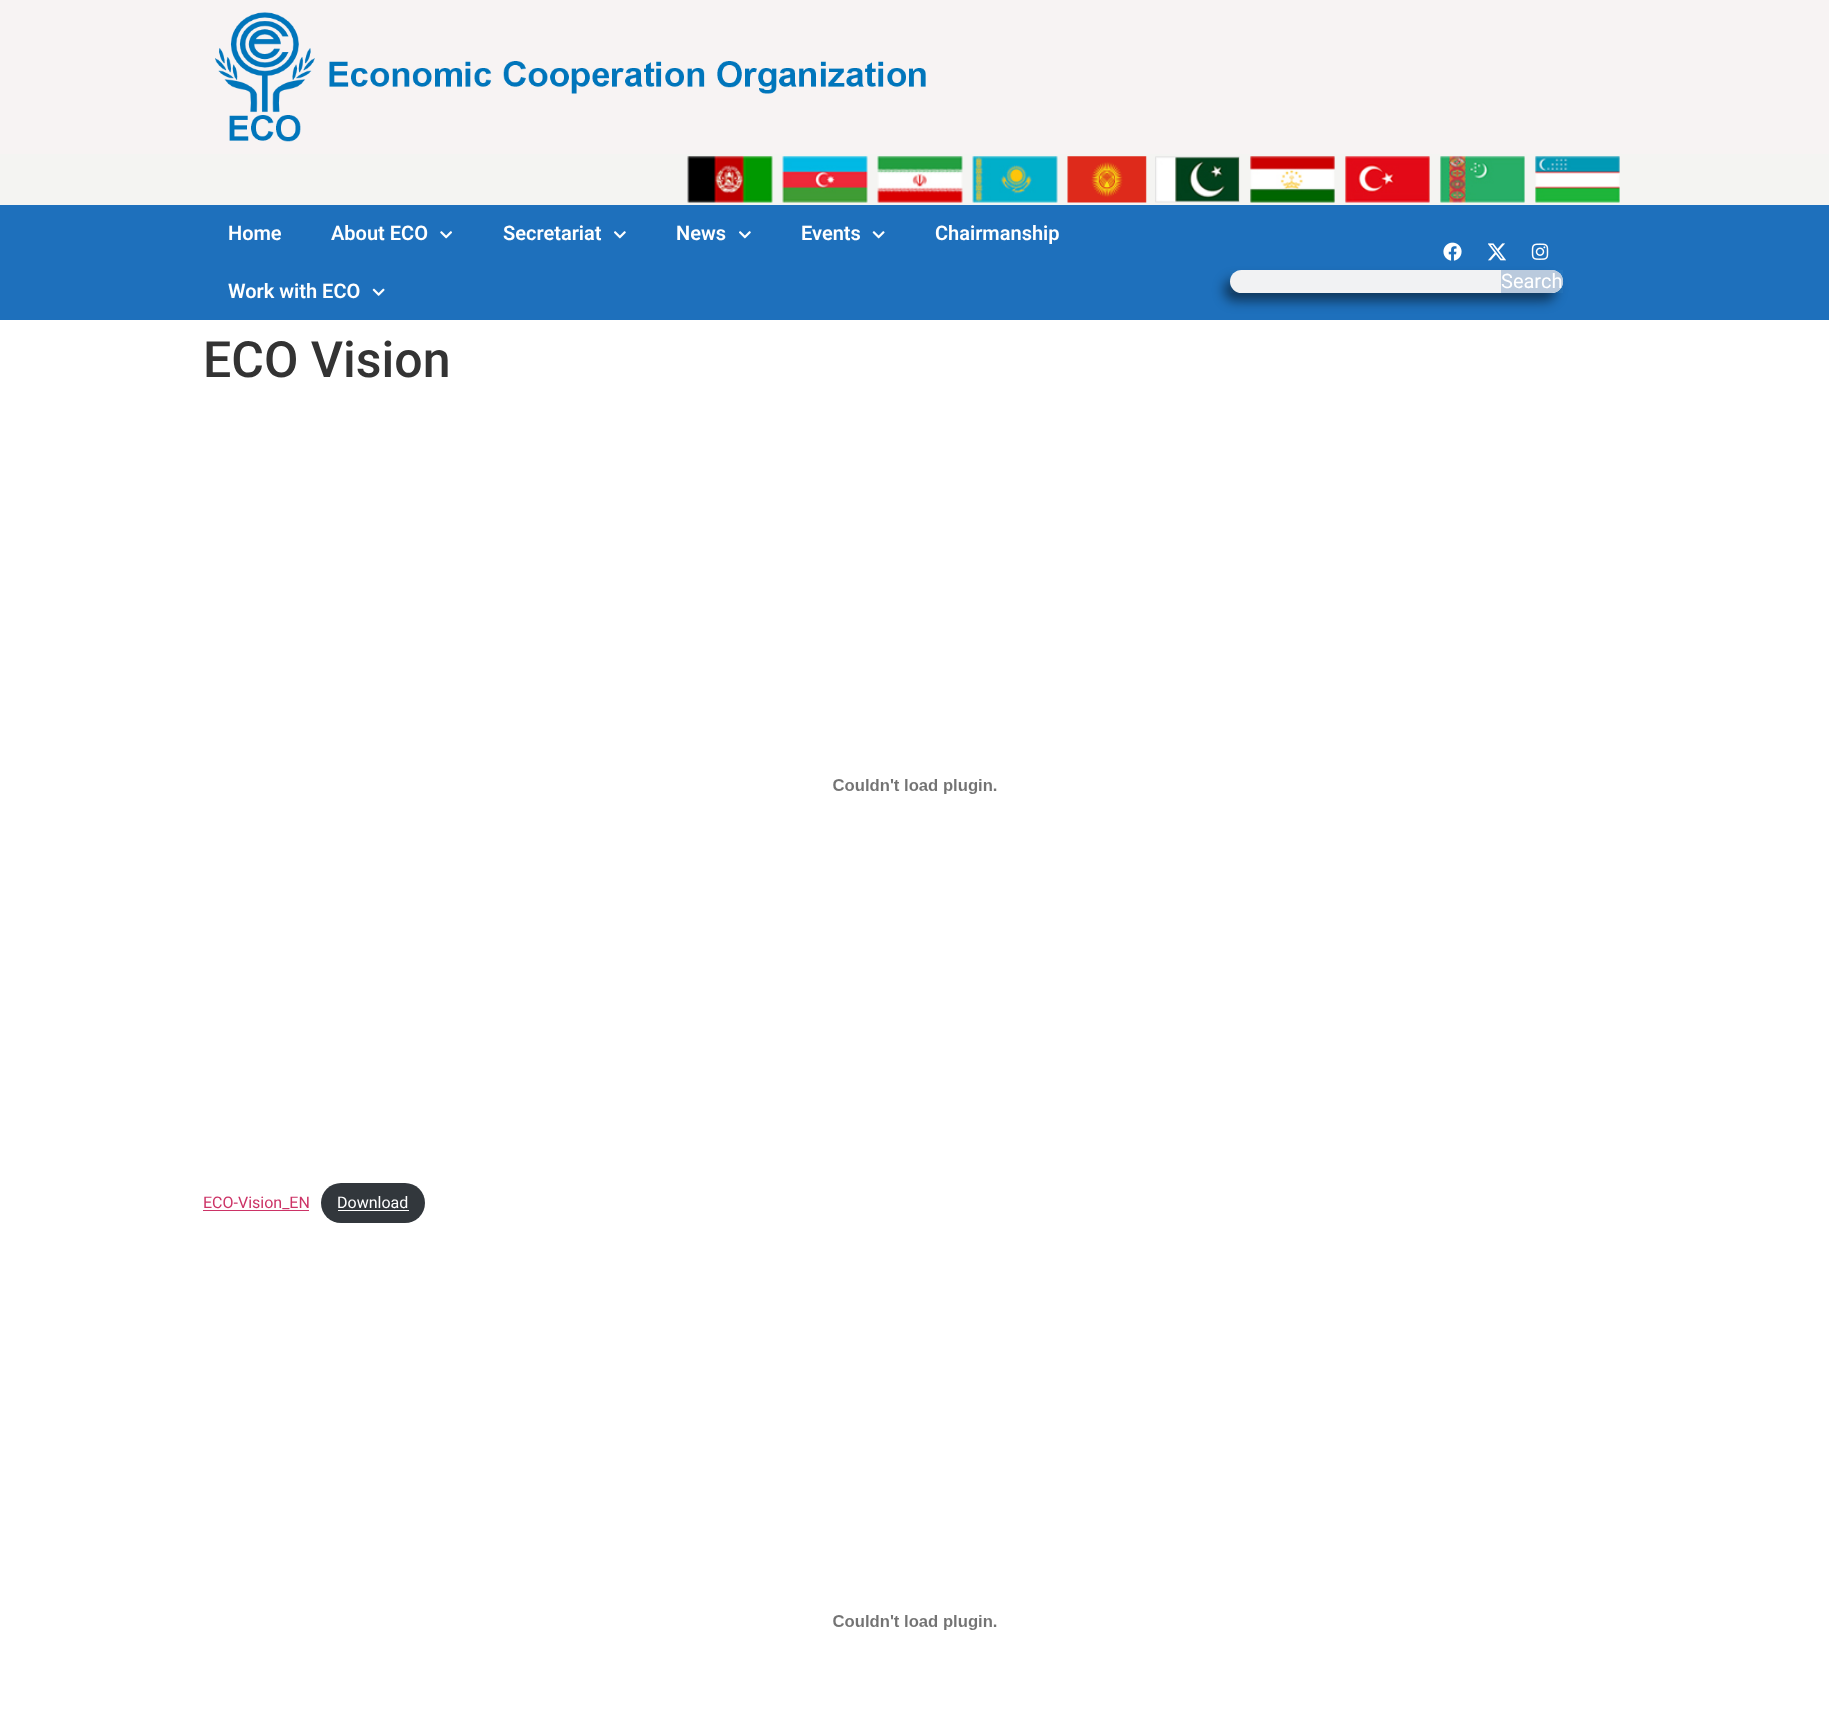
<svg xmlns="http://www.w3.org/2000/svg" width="1829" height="1719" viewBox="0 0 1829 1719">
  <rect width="100%" height="100%" fill="#fff"/>
  <path d="M0 0h1829v154H0z" fill="#f7f3f3"/>
  <image x="215" y="12" width="711" height="130" href="img/1.png"/>
  <path d="M0 154h1829v51H0z" fill="#f4f4f2"/>
  <image x="687" y="156" width="86" height="47" href="img/2.png"/>
  <image x="782" y="156" width="86" height="47" href="img/3.png"/>
  <image x="877" y="156" width="86" height="47" href="img/4.png"/>
  <image x="972" y="156" width="86" height="47" href="img/5.png"/>
  <image x="1067" y="156" width="80" height="47" href="img/6.png"/>
  <image x="1155" y="156" width="85" height="47" href="img/7.png"/>
  <image x="1250" y="156" width="85" height="47" href="img/8.png"/>
  <image x="1345" y="156" width="85" height="47" href="img/9.png"/>
  <image x="1440" y="156" width="85" height="47" href="img/10.png"/>
  <image x="1535" y="156" width="85" height="47" href="img/11.png"/>
  <path d="M0 205h1829v115H0z" fill="#1e70bc"/>
  <image x="440" y="231" width="12" height="8" href="img/12.png"/>
  <image x="614" y="231" width="12" height="8" href="img/13.png"/>
  <image x="739" y="231" width="12" height="8" href="img/13.png"/>
  <image x="872" y="231" width="13" height="8" href="img/14.png"/>
  <image x="372" y="288" width="13" height="8" href="img/15.png"/>
  <image x="1443" y="242" width="19" height="19" href="img/16.png"/>
  <image x="1488" y="243" width="18" height="18" href="img/17.png"/>
  <image x="1531" y="243" width="18" height="17" href="img/18.png"/>
  <path d="M1230 270h333v23H1230z" fill="#2577c0"/>
  <rect x="1224" y="279" width="332" height="22" rx="11" fill="#00000080" filter="blur(6px)"/>
  <rect x="1230" y="270" width="333" height="23" rx="11.5" fill="#f1f2f3"/>
  <path d="M1501 270H1551.5C1558 270 1563 275 1563 281.5C1563 288 1558 293 1551.5 293H1501Z" fill="#bacadd"/>
  <image x="833" y="779" width="164" height="15" href="img/19.png"/>
  <path d="M203 1210h106v1H203z" fill="#c36"/>
  <rect x="321" y="1183" width="104" height="40" rx="20" fill="#32373c"/>
  <path d="M338 1210h71v1H338z" fill="#fff"/>
  <image x="833" y="1615" width="164" height="15" href="img/19.png"/>
  <g font-family="Roboto" font-size="20" font-weight="600" fill="#fff">
    <text x="228" y="240">Home</text>
    <text x="331" y="240">About ECO</text>
    <text x="503" y="240">Secretariat</text>
    <text x="676" y="240">News</text>
    <text x="801" y="240">Events</text>
    <text x="935" y="240">Chairmanship</text>
    <text x="228" y="298">Work with ECO</text>
  </g>
  <text x="1501" y="288" font-family="Roboto" font-size="20" fill="#fff">Search</text>
  <text x="203" y="377" font-family="Roboto" font-size="50" font-weight="500" fill="#333">ECO Vision</text>
  <text x="203" y="1208" font-family="Roboto" font-size="16" fill="#c36">ECO-Vision_EN</text>
  <text x="337" y="1208" font-family="Roboto" font-size="16" fill="#fff">Download</text>
</svg>
